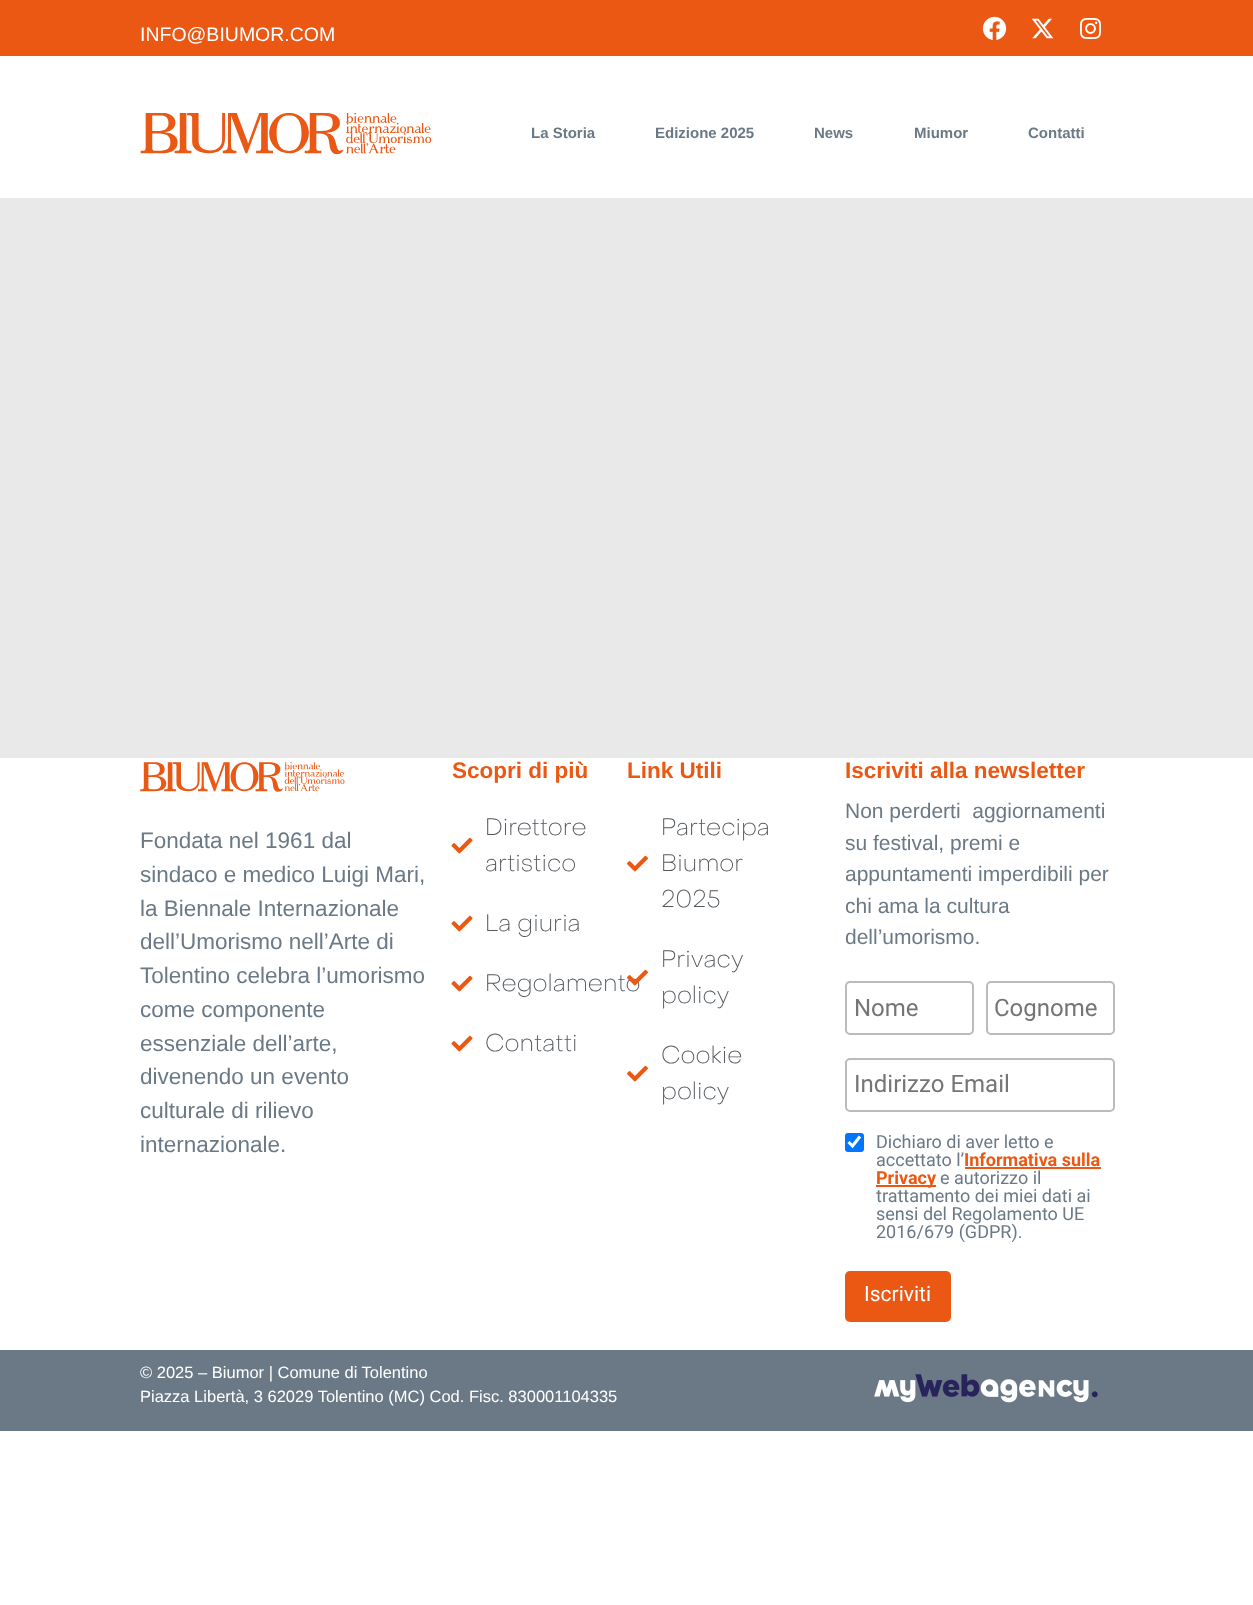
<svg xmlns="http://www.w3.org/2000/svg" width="1253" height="1605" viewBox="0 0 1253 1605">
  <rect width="100%" height="100%" fill="#fff"/>
  <path d="M0 0h1253v56H0z" fill="#eb5813"/>
  <image x="982" y="16" width="25" height="24" href="img/1.png"/>
  <image x="1031" y="18" width="23" height="21" href="img/2.png"/>
  <image x="1080" y="17" width="22" height="22" href="img/3.png"/>
  <image x="140" y="113" width="292" height="42" href="img/4.png"/>
  <path d="M0 198h1253v560H0z" fill="#e9e9e9"/>
  <image x="140" y="762" width="205" height="30" href="img/5.png"/>
  <image x="451" y="837" width="22" height="17" href="img/6.png"/>
  <image x="451" y="915" width="22" height="17" href="img/6.png"/>
  <image x="451" y="975" width="22" height="17" href="img/6.png"/>
  <image x="451" y="1035" width="22" height="17" href="img/6.png"/>
  <image x="627" y="855" width="21" height="17" href="img/7.png"/>
  <image x="627" y="1065" width="21" height="17" href="img/7.png"/>
  <rect x="846" y="982" width="127" height="52" rx="4" fill="none" stroke="#bbb" stroke-width="2"/>
  <rect x="987" y="982" width="127" height="52" rx="4" fill="none" stroke="#bbb" stroke-width="2"/>
  <rect x="846" y="1059" width="268" height="52" rx="4" fill="none" stroke="#bbb" stroke-width="2"/>
  <rect x="845" y="1133" width="19" height="19" rx="3" fill="#0075ff"/>
  <path d="M848.5 1142L852.5 1146L860 1136.5" fill="none" stroke="#fff" stroke-width="3.1"/>
  <path d="M965 1167h136v2H965z" fill="#eb5813"/>
  <path d="M876 1185h60v2H876z" fill="#eb5813"/>
  <rect x="845" y="1271" width="106" height="51" rx="5" fill="#eb5813"/>
  <path d="M0 1350h1253v81H0z" fill="#6b7986"/>
  <image x="874" y="1374" width="224" height="29" href="img/9.png"/>
  <text x="140" y="41" font-family="Liberation Sans" font-size="19.5" fill="#fff">INFO@BIUMOR.COM</text>
  <g font-family="Liberation Sans" font-size="15" font-weight="bold" fill="#6b7986">
    <text x="531" y="138">La Storia</text>
    <text x="655" y="138">Edizione 2025</text>
    <text x="814" y="138">News</text>
    <text x="914" y="138">Miumor</text>
    <text x="1028" y="138">Contatti</text>
  </g>
  <g font-family="Liberation Sans" font-size="22.5" fill="#6b7986">
    <text x="140" y="848">Fondata nel 1961 dal</text>
    <text x="140" y="882">sindaco e medico Luigi Mari,</text>
    <text x="140" y="916">la Biennale Internazionale</text>
    <text x="140" y="949">dell’Umorismo nell’Arte di</text>
    <text x="140" y="983">Tolentino celebra l’umorismo</text>
    <text x="140" y="1017">come componente</text>
    <text x="140" y="1051">essenziale dell’arte,</text>
    <text x="140" y="1084">divenendo un evento</text>
    <text x="140" y="1118">culturale di rilievo</text>
    <text x="140" y="1152">internazionale.</text>
  </g>
  <text x="452" y="778" font-family="Liberation Sans" font-size="22.5" font-weight="bold" fill="#eb5813">Scopri di più</text>
  <g font-family="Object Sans" font-size="24" font-weight="100" fill="#54595f">
    <text x="485" y="835">Direttore</text>
    <text x="485" y="871">artistico</text>
    <text x="485" y="931">La giuria</text>
    <text x="485" y="991">Regolamento</text>
    <text x="485" y="1051">Contatti</text>
  </g>
  <text x="627" y="778" font-family="Liberation Sans" font-size="22.5" font-weight="bold" fill="#eb5813">Link Utili</text>
  <g font-family="Object Sans" font-size="24" font-weight="100" fill="#54595f">
    <text x="661" y="835">Partecipa</text>
    <text x="661" y="871">Biumor</text>
    <text x="661" y="907">2025</text>
  </g>
  <image x="627" y="969" width="21" height="17" href="img/8.png"/>
  <g font-family="Object Sans" font-size="24" font-weight="100" fill="#54595f">
    <text x="661" y="967">Privacy</text>
    <text x="661" y="1003">policy</text>
    <text x="661" y="1063">Cookie</text>
    <text x="661" y="1099">policy</text>
  </g>
  <text x="845" y="778" font-family="Liberation Sans" font-size="22.5" font-weight="bold" fill="#eb5813">Iscriviti alla newsletter</text>
  <g font-family="Liberation Sans" font-size="21" fill="#6b7986">
    <text x="845" y="818" xml:space="preserve">Non perderti  aggiornamenti</text>
    <text x="845" y="850">su festival, premi e</text>
    <text x="845" y="881">appuntamenti imperdibili per</text>
    <text x="845" y="913">chi ama la cultura</text>
    <text x="845" y="944">dell’umorismo.</text>
  </g>
  <g font-family="Roboto" font-size="24" fill="#757575">
    <text x="854" y="1016">Nome</text>
    <text x="994" y="1016">Cognome</text>
    <text x="854" y="1092">Indirizzo Email</text>
  </g>
  <g font-family="Roboto" font-size="18" fill="#6b7986">
    <text x="876" y="1148">Dichiaro di aver letto e</text>
    <text x="876" y="1166">accettato l’</text>
  </g>
  <g font-family="Roboto" font-size="18" font-weight="bold" fill="#eb5813">
    <text x="964" y="1166">Informativa sulla</text>
    <text x="876" y="1184">Privacy</text>
  </g>
  <g font-family="Roboto" font-size="18" fill="#6b7986">
    <text x="940" y="1184">e autorizzo il</text>
    <text x="876" y="1202">trattamento dei miei dati ai</text>
    <text x="876" y="1220">sensi del Regolamento UE</text>
    <text x="876" y="1238">2016/679 (GDPR).</text>
  </g>
  <text x="864" y="1301" font-family="Roboto" font-size="21" fill="#fff">Iscriviti</text>
  <g font-family="Liberation Sans" font-size="16.5" fill="#fff">
    <text x="140" y="1378">© 2025 – Biumor | Comune di Tolentino</text>
    <text x="140" y="1402">Piazza Libertà, 3 62029 Tolentino (MC) Cod. Fisc. 830001104335</text>
  </g>
</svg>
